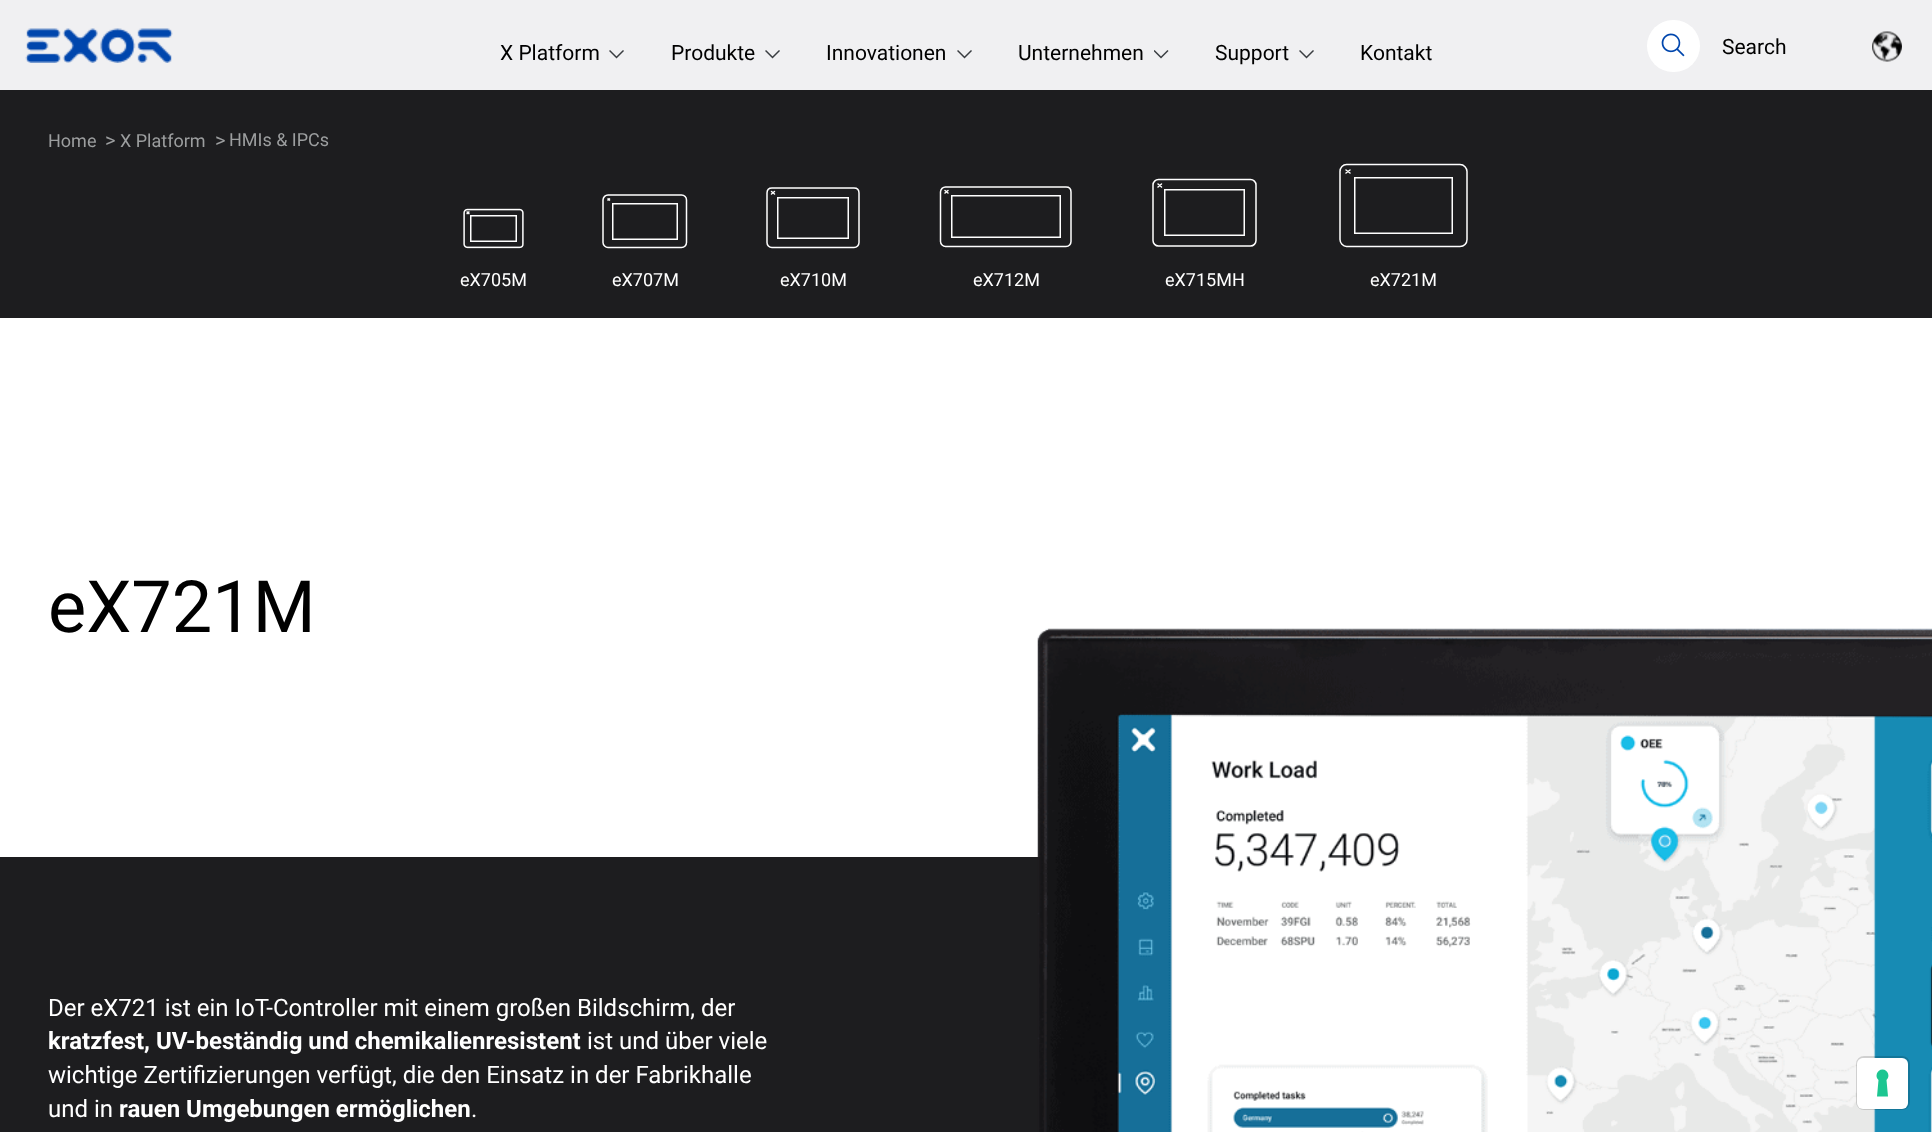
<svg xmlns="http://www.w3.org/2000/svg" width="1932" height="1132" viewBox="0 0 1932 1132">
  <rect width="100%" height="100%" fill="#fff"/>
  <path d="M0 0h1932v90H0z" fill="#f0f0f2"/>
  <image x="25" y="28" width="148" height="35" href="img/1.png"/>
  <image x="609" y="50" width="15" height="9" href="img/2.png"/>
  <image x="765" y="50" width="15" height="9" href="img/2.png"/>
  <image x="957" y="50" width="15" height="9" href="img/2.png"/>
  <image x="1154" y="50" width="15" height="9" href="img/3.png"/>
  <image x="1299" y="50" width="15" height="9" href="img/2.png"/>
  <rect x="1647" y="20" width="53" height="52" rx="26" fill="#fff"/>
  <image x="1661" y="33" width="24" height="24" href="img/4.png"/>
  <image x="1872" y="31" width="30" height="31" href="img/5.png"/>
  <path d="M0 90h1932v228H0z" fill="#1d1d1f"/>
  <image x="463" y="208" width="61" height="41" href="img/6.png"/>
  <path d="M608 195H681.5C684.5 195 686.5 197.5 686.5 200V242.5C686.5 245 684.5 247.5 681.5 247.5H608C605.5 247.5 603 245 603 242.5V200C603 197 605.5 195 608 195Z" fill="none" stroke="#fff" stroke-width="1.5" stroke-linejoin="round"/>
  <path d="M610 200.5L607.5 198.5M607.5 200.5L610 198.5" fill="none" stroke="#fff" stroke-width="1.5" stroke-linejoin="round"/>
  <path d="M612.75 203.75h64.5v35.5H612.75z" fill="none" stroke="#fff" stroke-width="1.5"/>
  <path d="M854 247.5H772C769 247.5 767 245 767 242.5V193C767 190 769 188 772 188H854C857 188 859 190 859 193V242.5C859 245 857 247.5 854 247.5Z" fill="none" stroke="#fff" stroke-width="1.5" stroke-linecap="round" stroke-linejoin="round"/>
  <path d="M774.5 194L771.5 191.5M771.5 194L774.5 191.5" fill="none" stroke="#fff" stroke-width="1.5" stroke-linecap="round" stroke-linejoin="round"/>
  <path d="M777.75 197.75h70.5v40.5H777.75z" fill="none" stroke="#fff" stroke-width="1.5"/>
  <path d="M1066 246.5H945.5C943 246.5 940.5 244 940.5 241.5V192C940.5 189 943 187 945.5 187H1066C1069 187 1071 189 1071 192V241.5C1071 244 1069 246.5 1066 246.5Z" fill="none" stroke="#fff" stroke-width="1.5" stroke-linecap="round" stroke-linejoin="round"/>
  <path d="M948 193L945 190.5M945 193L948 190.5" fill="none" stroke="#fff" stroke-width="1.5" stroke-linecap="round" stroke-linejoin="round"/>
  <path d="M951.75 195.75h108.5v41.5H951.75z" fill="none" stroke="#fff" stroke-width="1.5"/>
  <path d="M1250.5 246H1158.5C1155.5 246 1153 243.5 1153 240.5V185C1153 182 1155.5 179.5 1158.5 179.5H1250.5C1253.5 179.5 1256 182 1256 185V240.5C1256 243.5 1253.5 246 1250.5 246Z" fill="none" stroke="#fff" stroke-width="1.5" stroke-linecap="round" stroke-linejoin="round"/>
  <path d="M1161.5 187L1158 184M1158 187L1161.5 184" fill="none" stroke="#fff" stroke-width="1.5" stroke-linecap="round" stroke-linejoin="round"/>
  <path d="M1164.75 189.75h79.5v45.5H1164.75z" fill="none" stroke="#fff" stroke-width="1.5"/>
  <path d="M1460 246.5H1346.5C1343 246.5 1340 243 1340 239.5V171.5C1340 167.5 1343 164.5 1346.5 164.5H1460C1464 164.5 1467 168 1467 171.5V239.5C1467 243.5 1464 246.5 1460 246.5Z" fill="none" stroke="#fff" stroke-width="1.5" stroke-linecap="round" stroke-linejoin="round"/>
  <path d="M1350 173L1346 170M1346 173L1350 170" fill="none" stroke="#fff" stroke-width="1.5" stroke-linecap="round" stroke-linejoin="round"/>
  <path d="M1354.75 177.75h97.5v55.5H1354.75z" fill="none" stroke="#fff" stroke-width="1.5"/>
  <path d="M0 857h1932v275H0z" fill="#1d1d1f"/>
  <image x="1037" y="628" width="895" height="504" href="img/7.png"/>
  <rect x="1857" y="1057" width="52" height="52" rx="7" fill="none" stroke="#00000026" stroke-width="2"/>
  <rect x="1857" y="1058" width="51" height="51" rx="6" fill="#fff"/>
  <path d="M1882.5 1069.5C1888 1069.5 1890.5 1076.5 1886.5 1080L1888 1096.5H1877L1878.5 1080C1874.5 1076.5 1877 1069.5 1882.5 1069.5Z" fill="#1cc691" fill-rule="evenodd"/>
  <g font-family="Roboto" font-size="21" fill="#000">
    <text x="500" y="60">X Platform</text>
    <text x="671" y="60">Produkte</text>
    <text x="826" y="60">Innovationen</text>
    <text x="1018" y="60">Unternehmen</text>
    <text x="1215" y="60">Support</text>
    <text x="1360" y="60">Kontakt</text>
    <text x="1722" y="54">Search</text>
  </g>
  <text x="48" y="147" font-family="Roboto" font-size="18" fill="#9c9e9f">Home</text>
  <text x="105" y="147" font-family="Roboto" font-size="20" fill="#9c9e9f">&gt;</text>
  <text x="120" y="147" font-family="Roboto" font-size="18" fill="#9c9e9f">X Platform</text>
  <text x="215" y="147" font-family="Roboto" font-size="20" fill="#9c9e9f">&gt;</text>
  <text x="229" y="146" font-family="Roboto" font-size="18" fill="#9c9e9f">HMIs &amp; IPCs</text>
  <g font-family="Roboto" font-size="18" fill="#fff">
    <text x="460" y="286">eX705M</text>
    <text x="612" y="286">eX707M</text>
    <text x="780" y="286">eX710M</text>
    <text x="973" y="286">eX712M</text>
    <text x="1165" y="286">eX715MH</text>
    <text x="1370" y="286">eX721M</text>
  </g>
  <text x="48" y="632" font-family="Roboto" font-size="72" fill="#000">eX721M</text>
  <text x="48" y="1016" font-family="Roboto" font-size="24" fill="#fff">Der eX721 ist ein IoT-Controller mit einem großen Bildschirm, der</text>
  <text x="48" y="1049" font-family="Roboto" font-size="24" font-weight="bold" fill="#fff">kratzfest, UV-beständig und chemikalienresistent</text>
  <g font-family="Roboto" font-size="24" fill="#fff">
    <text x="587" y="1049">ist und über viele</text>
    <text x="48" y="1083">wichtige Zertifizierungen verfügt, die den Einsatz in der Fabrikhalle</text>
    <text x="48" y="1117">und in</text>
  </g>
  <text x="119" y="1117" font-family="Roboto" font-size="24" font-weight="bold" fill="#fff">rauen Umgebungen ermöglichen</text>
  <text x="471" y="1117" font-family="Roboto" font-size="24" fill="#fff">.</text>
</svg>
